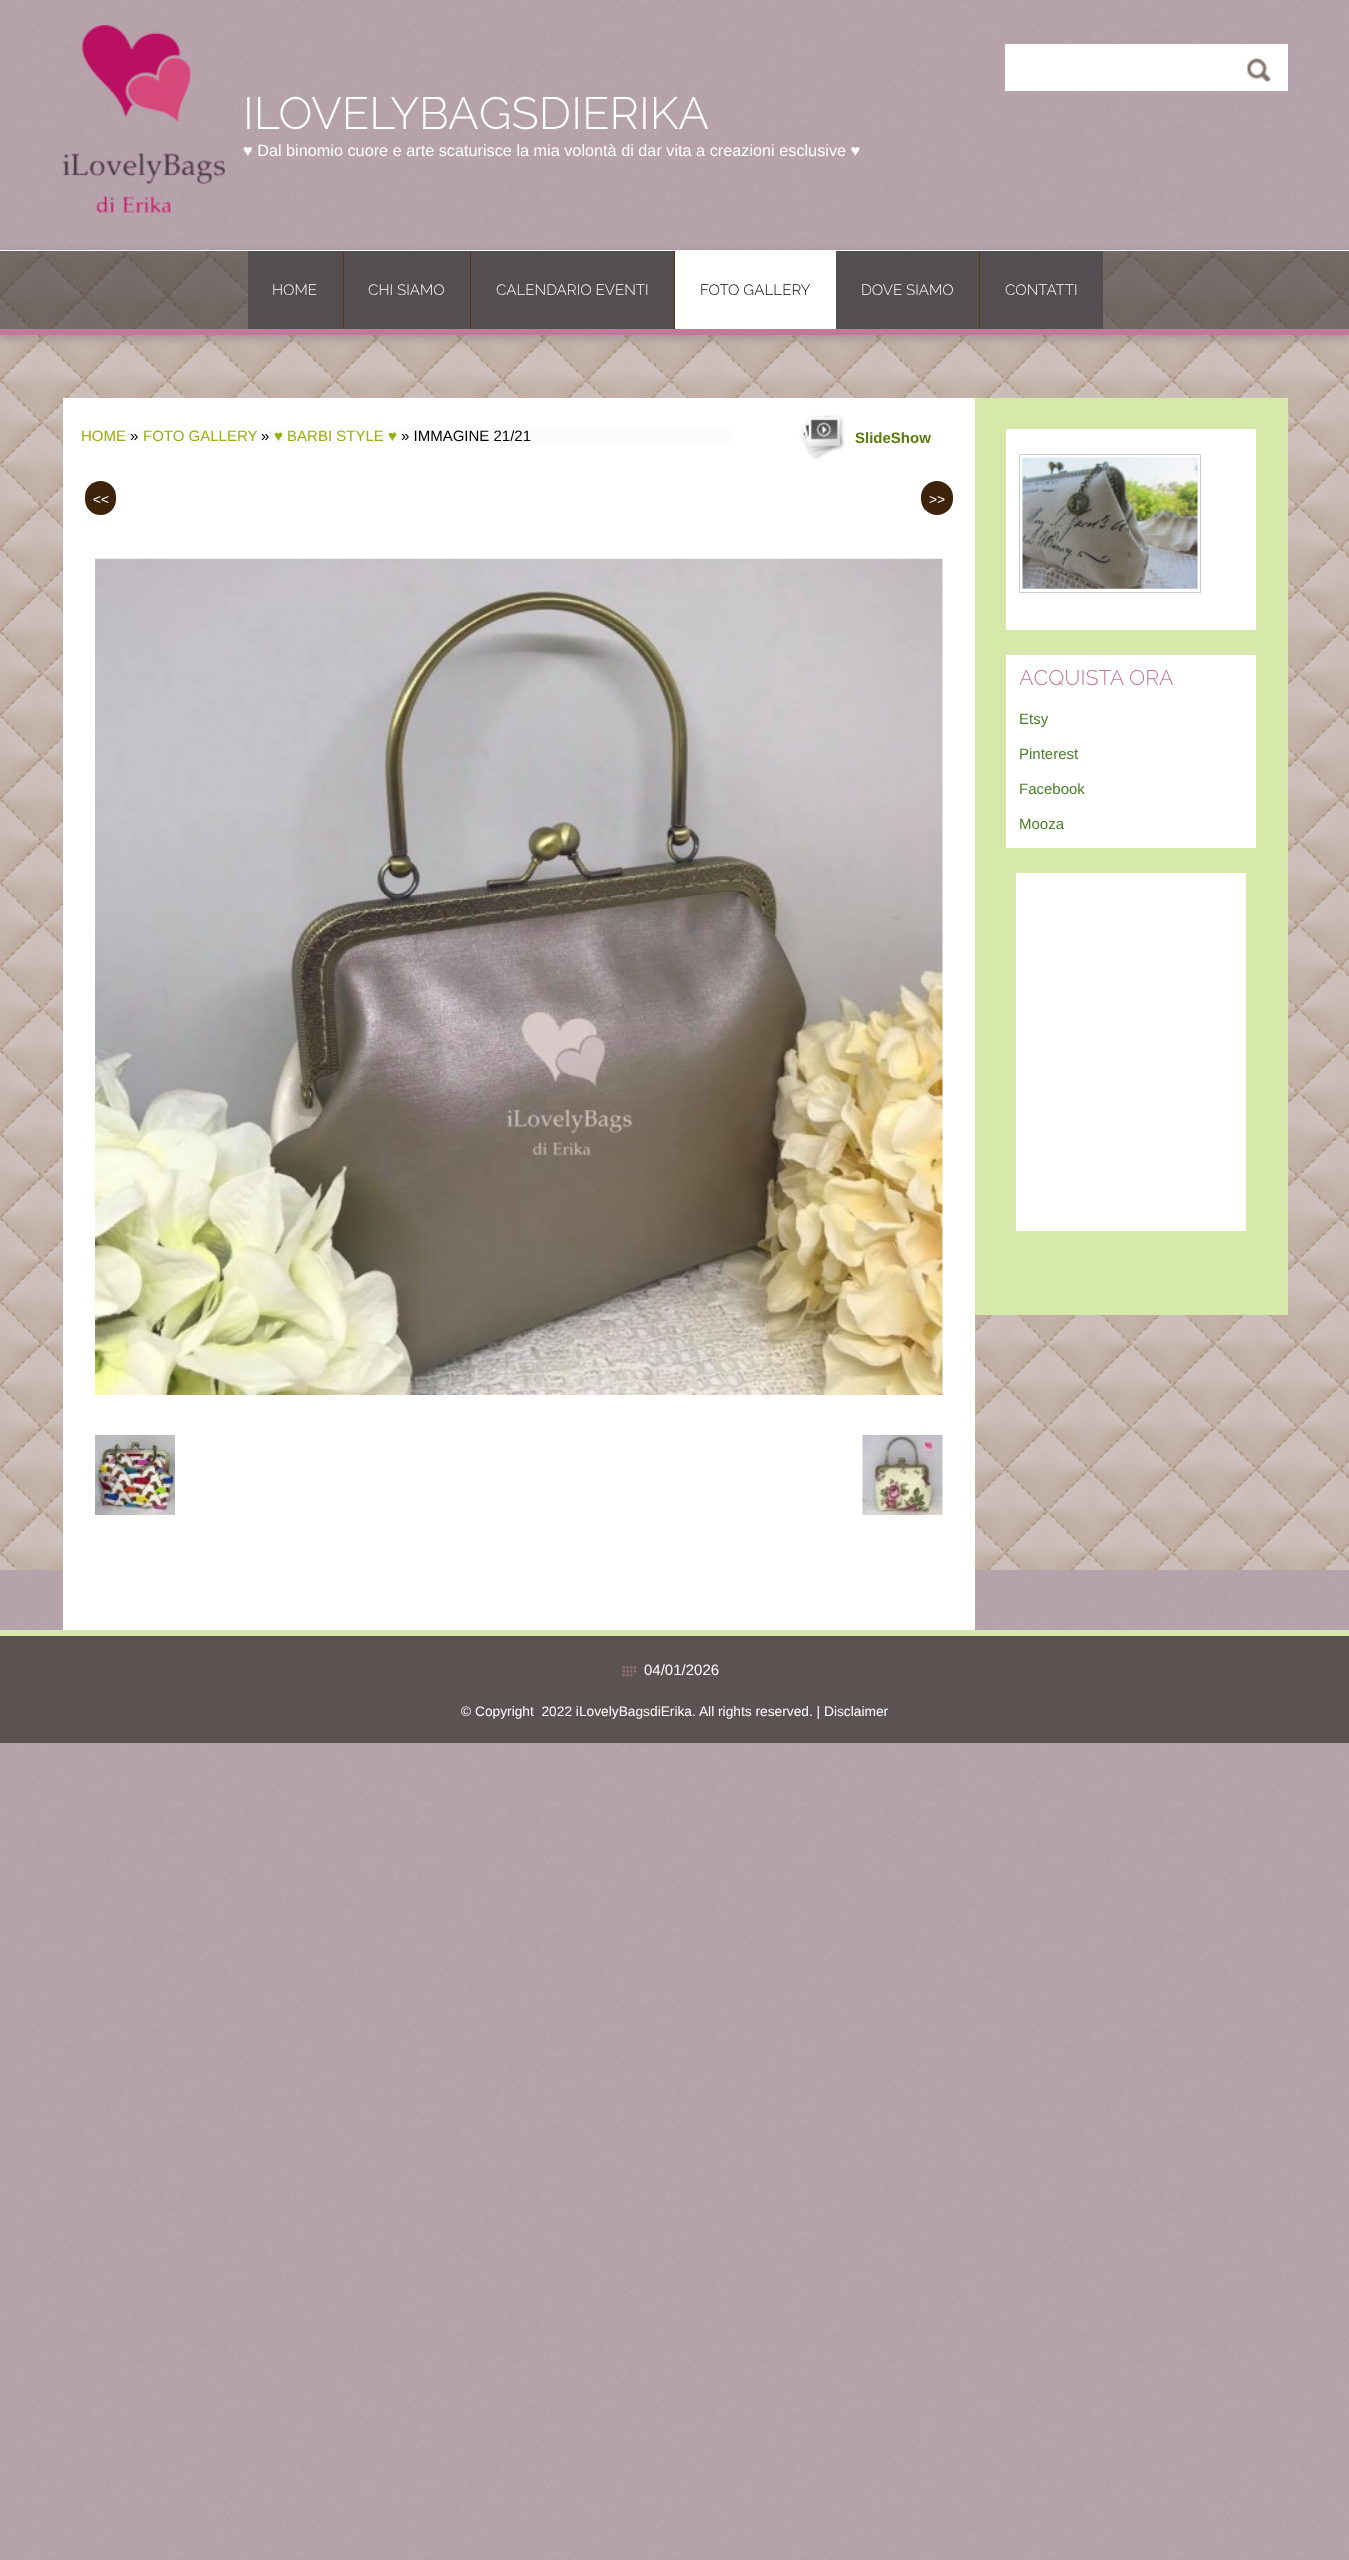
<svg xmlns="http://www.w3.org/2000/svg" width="1349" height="2560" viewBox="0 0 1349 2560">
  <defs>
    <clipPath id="clip1"><path d="M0 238H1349V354H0ZM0 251H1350V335H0Z" clip-rule="evenodd"/></clipPath>
  </defs>
  <rect width="100%" height="100%" fill="#f2d7e2"/>
  <image x="0" y="0" width="1349" height="2560" href="img/1.png"/>
  <image x="0" y="335" width="1349" height="1235" href="img/5.png"/>
  <g clip-path="url(#clip1)">
    <path d="M0 254h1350v84H0z" fill="#3232324d" filter="blur(5px)"/>
  </g>
  <path d="M0 250h1349v1H0z" fill="#fff"/>
  <path d="M1005 44h283v47H1005z" fill="#33333366" filter="blur(0.5px)"/>
  <path d="M1005 44h283v47H1005z" fill="#fff"/>
  <image x="1247" y="58" width="24" height="24" href="img/2.png"/>
  <image x="62" y="25" width="163" height="188" href="img/3.png"/>
  <image x="0" y="251" width="1349" height="78" href="img/4.png"/>
  <path d="M0 329h1349v6H0z" fill="#c2789c"/>
  <path d="M0 251h1349v78H0z" fill="#1f1c1c80"/>
  <path d="M248 251h95v78H248z" fill="#524e52"/>
  <path d="M343 251h1v78H343z" fill="#5c330c"/>
  <path d="M344 251h126v78H344z" fill="#524e52"/>
  <path d="M470 251h1v78H470z" fill="#5c330c"/>
  <path d="M471 251h203v78H471z" fill="#524e52"/>
  <path d="M674 251h1v78H674z" fill="#5c330c"/>
  <path d="M675 251h161v78H675z" fill="#fff"/>
  <path d="M836 251h143v78H836z" fill="#524e52"/>
  <path d="M979 251h1v78H979z" fill="#5c330c"/>
  <path d="M980 251h123v78H980z" fill="#524e52"/>
  <path d="M63 398h912v1232H63z" fill="#fff"/>
  <path d="M81 429h650v15H81z" fill="#fcfcfc"/>
  <image x="799" y="415" width="46" height="45" href="img/6.png"/>
  <rect x="85" y="481" width="31" height="34" rx="15.5" fill="#3d230a"/>
  <rect x="921" y="481" width="32" height="34" rx="16" fill="#3d230a"/>
  <image x="95" y="558" width="848" height="837" href="img/7.png"/>
  <image x="95" y="1435" width="80" height="80" href="img/8.png"/>
  <image x="862" y="1435" width="81" height="80" href="img/9.png"/>
  <path d="M975 398h313v917H975z" fill="#d6e8aa"/>
  <path d="M1006 429h250v201H1006z" fill="#fff"/>
  <path d="M1019.5 454.5h181v138H1019.5z" fill="none" stroke="#ccc"/>
  <image x="1022" y="457" width="176" height="132" href="img/10.png"/>
  <path d="M1006 655h250v193H1006z" fill="#fff"/>
  <path d="M1016 873h230v358H1016z" fill="#fff"/>
  <path d="M0 1636h1349v107H0z" fill="#5c5252"/>
  <path d="M0 1630h1349v6H0z" fill="#d6e8aa"/>
  <image x="622" y="1666" width="15" height="11" href="img/11.png"/>
  <text x="243" y="129" font-family="Raleway" font-size="45" font-weight="300" fill="#fff">ILOVELYBAGSDIERIKA</text>
  <text x="243" y="156" font-family="Liberation Sans" font-size="16.25" fill="#fff">♥ Dal binomio cuore e arte scaturisce la mia volontà di dar vita a creazioni esclusive ♥</text>
  <g font-family="Raleway" font-size="15" font-weight="300" fill="#fff">
    <text x="272" y="295">HOME</text>
    <text x="368" y="295">CHI SIAMO</text>
    <text x="496" y="295">CALENDARIO EVENTI</text>
  </g>
  <text x="700" y="295" font-family="Raleway" font-size="15" font-weight="300" fill="#000">FOTO GALLERY</text>
  <g font-family="Raleway" font-size="15" font-weight="300" fill="#fff">
    <text x="861" y="295">DOVE SIAMO</text>
    <text x="1005" y="295">CONTATTI</text>
  </g>
  <text x="81" y="441" font-family="Liberation Sans" font-size="15" fill="#9ab00e">HOME</text>
  <text x="130" y="441" font-family="Liberation Sans" font-size="15" fill="#000">»</text>
  <text x="143" y="441" font-family="Liberation Sans" font-size="15" fill="#9ab00e">FOTO GALLERY</text>
  <text x="261" y="441" font-family="Liberation Sans" font-size="15" fill="#000">»</text>
  <text x="274" y="441" font-family="Liberation Sans" font-size="15" fill="#9ab00e">♥ BARBI STYLE ♥</text>
  <text x="401" y="441" font-family="Liberation Sans" font-size="15" fill="#000">» IMMAGINE 21/21</text>
  <text x="855" y="443" font-family="Liberation Sans" font-size="15" font-weight="bold" fill="#5a7a0a">SlideShow</text>
  <g font-family="Liberation Sans" font-size="13.75" fill="#fff">
    <text x="93" y="504">&lt;&lt;</text>
    <text x="929" y="504">&gt;&gt;</text>
  </g>
  <text x="1019" y="685" font-family="Raleway" font-size="21.25" font-weight="300" fill="#c2789c">ACQUISTA ORA</text>
  <g font-family="Liberation Sans" font-size="15" fill="#498029">
    <text x="1019" y="724">Etsy</text>
    <text x="1019" y="759">Pinterest</text>
    <text x="1019" y="794">Facebook</text>
    <text x="1019" y="829">Mooza</text>
  </g>
  <text x="644" y="1675" font-family="Liberation Sans" font-size="15" fill="#fff">04/01/2026</text>
  <text x="461" y="1716" font-family="Liberation Sans" font-size="13.75" fill="#fff" xml:space="preserve">© Copyright  2022 iLovelyBagsdiErika. All rights reserved. | Disclaimer</text>
</svg>
